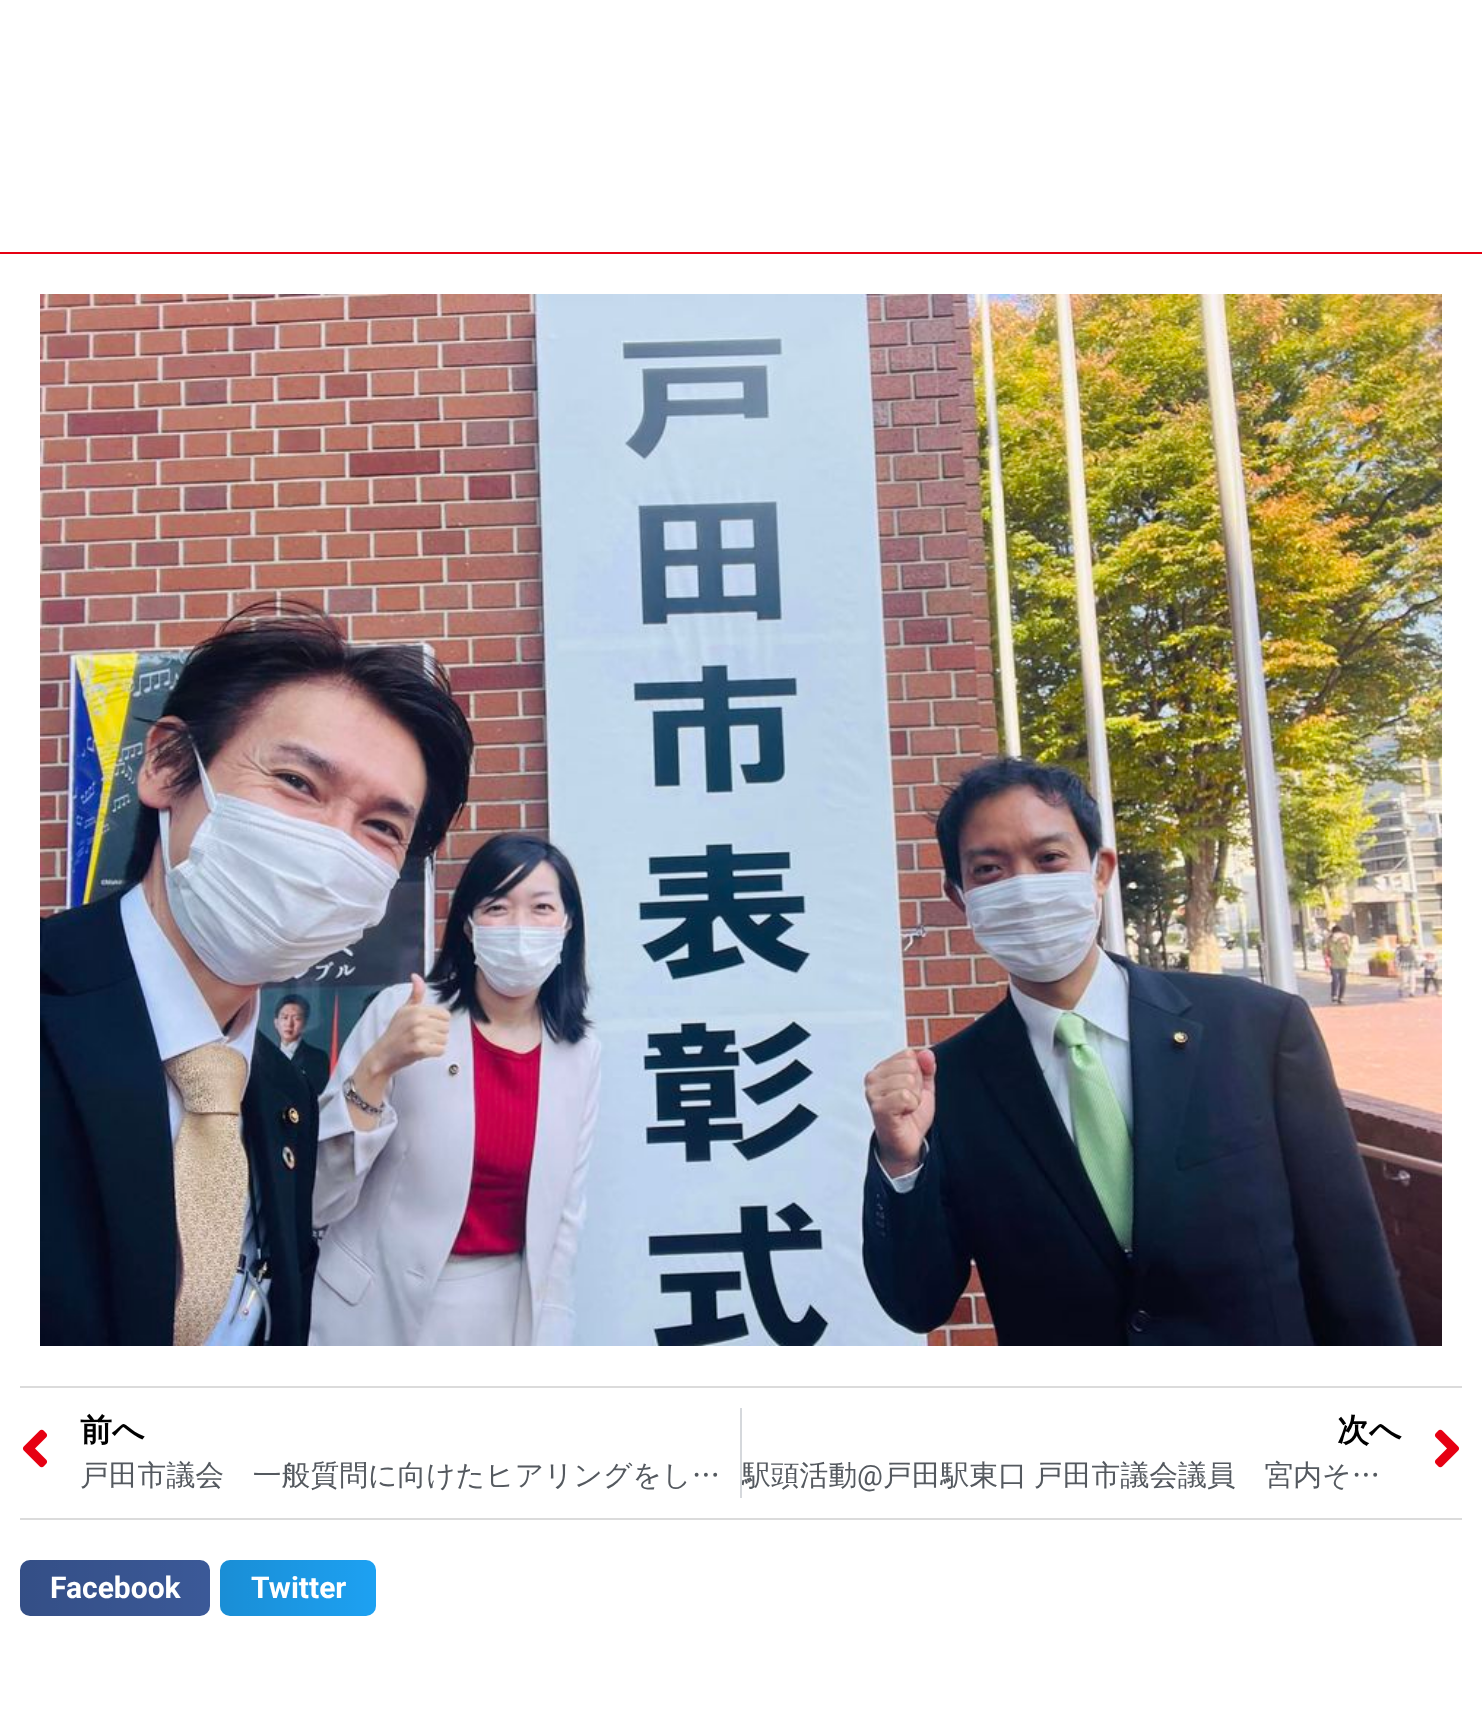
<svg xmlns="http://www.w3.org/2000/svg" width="1482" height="1726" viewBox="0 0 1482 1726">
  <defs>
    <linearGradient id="g1" gradientUnits="userSpaceOnUse" x1="20" y1="1588" x2="210" y2="1588"><stop offset="0" stop-color="#000" stop-opacity="0.12"/><stop offset="1" stop-color="#000" stop-opacity="0"/></linearGradient>
    <linearGradient id="g2" gradientUnits="userSpaceOnUse" x1="220" y1="1588" x2="376" y2="1588"><stop offset="0" stop-color="#000" stop-opacity="0.12"/><stop offset="1" stop-color="#000" stop-opacity="0"/></linearGradient>
    <clipPath id="clip1"><path d="M742 1456h660v42H742z"/></clipPath>
  </defs>
  <rect width="100%" height="100%" fill="#fff"/>
  <path d="M0 252h1482v2H0z" fill="#e60012"/>
  <image x="40" y="294" width="1402" height="1052" href="img/1.png"/>
  <path d="M20 1386h1442v2H20z" fill="#dbdbdb"/>
  <path d="M20 1518h1442v2H20z" fill="#dbdbdb"/>
  <image x="22" y="1429" width="26" height="39" href="img/2.png"/>
  <path d="M740 1408h2v90H740z" fill="#d5d8dc"/>
  <image x="1434" y="1429" width="26" height="39" href="img/3.png"/>
  <rect x="20" y="1560" width="190" height="56" rx="10" fill="#3b5998"/>
  <rect x="20" y="1560" width="190" height="56" rx="10" fill="url(#g1)"/>
  <rect x="220" y="1560" width="156" height="56" rx="10" fill="#1da1f2"/>
  <rect x="220" y="1560" width="156" height="56" rx="10" fill="url(#g2)"/>
  <text x="80" y="1441" font-family="WenQuanYi Zen Hei" font-size="32" font-weight="bold" fill="#000">前へ</text>
  <text x="80" y="1485" font-family="WenQuanYi Zen Hei" font-size="28.8" font-weight="500" fill="#54595f">戸田市議会　一般質問に向けたヒアリングをし…</text>
  <text x="1337" y="1441" font-family="WenQuanYi Zen Hei" font-size="32" font-weight="bold" fill="#000">次へ</text>
  <g clip-path="url(#clip1)">
    <text x="742" y="1485" font-family="WenQuanYi Zen Hei" font-size="28.8" font-weight="500" fill="#54595f">駅頭活動</text>
  </g>
  <text x="857" y="1485" font-family="Roboto" font-size="28.8" fill="#54595f">@</text>
  <g font-family="WenQuanYi Zen Hei" font-size="28.8" font-weight="500" fill="#54595f">
    <text x="883" y="1485">戸田駅東口</text>
    <text x="1034" y="1485">戸田市議会議員　宮内そ…</text>
  </g>
  <g font-family="Roboto" font-size="30" font-weight="bold" fill="#fff">
    <text x="50" y="1598">Facebook</text>
    <text x="251" y="1598">Twitter</text>
  </g>
</svg>
